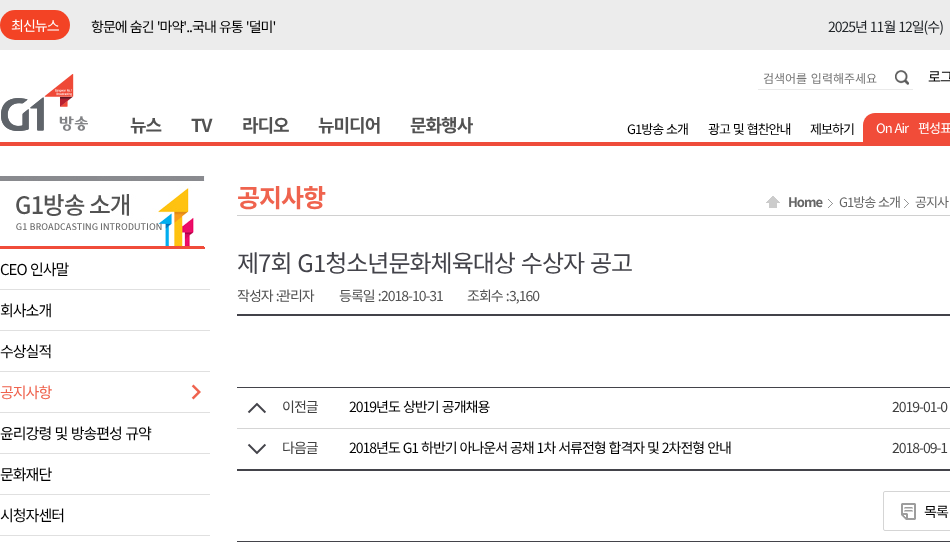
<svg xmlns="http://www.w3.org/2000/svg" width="950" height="552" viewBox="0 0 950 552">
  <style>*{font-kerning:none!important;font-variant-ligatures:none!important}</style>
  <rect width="100%" height="100%" fill="#fff"/>
  <path d="M0 0h950v50H0z" fill="#ececec"/>
  <rect y="10" width="70" height="30" rx="15" fill="#f34325"/>
  <path d="M0 142h950v4H0z" fill="#ef4c3a"/>
  <path d="M758 89h155v1H758z" fill="#eaeaea"/>
  <image x="895" y="70" width="14" height="15" href="img/1.png"/>
  <image x="1" y="74" width="87" height="57" href="img/2.png"/>
  <path d="M875 113H950C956.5 113 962 118.5 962 125V143H863V125C863 118.5 868.5 113 875 113Z" fill="#f14c39"/>
  <image x="0" y="176" width="205" height="73" href="img/3.png"/>
  <path d="M0 289h210v1H0z" fill="#e0e0e0"/>
  <path d="M0 330h210v1H0z" fill="#e0e0e0"/>
  <path d="M0 371h210v1H0z" fill="#e0e0e0"/>
  <path d="M0 412h210v1H0z" fill="#e0e0e0"/>
  <image x="191" y="384" width="10" height="16" href="img/4.png"/>
  <path d="M0 453h210v1H0z" fill="#e0e0e0"/>
  <path d="M0 494h210v1H0z" fill="#e0e0e0"/>
  <path d="M0 535h210v1H0z" fill="#e0e0e0"/>
  <path d="M237 215h713v1H237z" fill="#d0d0d0"/>
  <image x="766" y="196" width="14" height="12" href="img/5.png"/>
  <image x="828" y="199" width="5" height="9" href="img/6.png"/>
  <image x="904" y="199" width="5" height="9" href="img/6.png"/>
  <path d="M237 314h713v2H237z" fill="#43434a"/>
  <path d="M237 387h713v1H237z" fill="#43434a"/>
  <path d="M237 469h713v2H237z" fill="#43434a"/>
  <image x="247" y="402" width="19" height="12" href="img/7.png"/>
  <image x="247" y="443" width="19" height="12" href="img/8.png"/>
  <path d="M237 428h713v1H237z" fill="#d5d5d5"/>
  <image x="901" y="503" width="15" height="17" href="img/9.png"/>
  <rect x="883.5" y="491.5" width="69" height="39" rx="1.5" fill="none" stroke="#d5d5d5"/>
  <path d="M237 541h713v1H237z" fill="#43434a"/>
  <text x="11" y="31" font-family="Noto Sans KR" font-size="14" letter-spacing="-1" fill="#fff">최신뉴스</text>
  <text x="91" y="32" word-spacing="1" font-family="Noto Sans KR" font-size="14" letter-spacing="-1" fill="#000">항문에 숨긴 '마약'..국내 유통 '덜미'</text>
  <text x="828" y="32" word-spacing="0.75" font-family="Noto Sans KR" font-size="14" letter-spacing="-1" fill="#212529">2025년 11월 12일(수)</text>
  <text x="763" y="83" word-spacing="1" font-family="Noto Sans KR" font-size="12" fill="#757575">검색어를 입력해주세요</text>
  <text x="928" y="82" font-family="Noto Sans KR" font-size="14" letter-spacing="-1" fill="#000">로그</text>
  <g font-family="Noto Sans KR" font-size="18" font-weight="bold" letter-spacing="-1" fill="#525252">
    <text x="130" y="132">뉴스</text>
    <text x="191" y="132">TV</text>
    <text x="242" y="132">라디오</text>
    <text x="318" y="132">뉴미디어</text>
    <text x="410" y="132">문화행사</text>
  </g>
  <g font-family="Noto Sans KR" font-size="13" letter-spacing="-1" fill="#000">
    <text x="627" y="134" word-spacing="1">G1방송 소개</text>
    <text x="708" y="134" word-spacing="1">광고 및 협찬안내</text>
    <text x="810" y="134">제보하기</text>
  </g>
  <g font-family="Noto Sans KR" font-size="13" letter-spacing="-1" fill="#fff">
    <text x="876" y="133" word-spacing="1">On Air</text>
    <text x="918" y="133">편성표</text>
  </g>
  <g font-family="Noto Sans KR" font-size="15" letter-spacing="-1" fill="#000">
    <text x="0" y="275" word-spacing="1">CEO 인사말</text>
    <text x="0" y="316">회사소개</text>
    <text x="0" y="357">수상실적</text>
  </g>
  <text x="0" y="398" font-family="Noto Sans KR" font-size="15" letter-spacing="-1" fill="#ef634e">공지사항</text>
  <g font-family="Noto Sans KR" font-size="15" letter-spacing="-1" fill="#000">
    <text x="0" y="439" word-spacing="1">윤리강령 및 방송편성 규약</text>
    <text x="0" y="480">문화재단</text>
    <text x="0" y="521">시청자센터</text>
  </g>
  <text x="237" y="207" font-family="Noto Sans KR" font-size="25" font-weight="bold" letter-spacing="-1" fill="#ef634e">공지사항</text>
  <text x="788" y="207" font-family="Noto Sans KR" font-size="13" font-weight="bold" letter-spacing="-1" fill="#666">Home</text>
  <g font-family="Noto Sans KR" font-size="13" letter-spacing="-1" fill="#666">
    <text x="839" y="207" word-spacing="1">G1방송 소개</text>
    <text x="915" y="207">공지사</text>
  </g>
  <text x="237" y="272" word-spacing="1.5" font-family="Noto Sans KR" font-size="24" letter-spacing="-1" fill="#43434a">제7회 G1청소년문화체육대상 수상자 공고</text>
  <g font-family="Noto Sans KR" font-size="14" letter-spacing="-1" fill="#525252">
    <text x="237" y="301" word-spacing="1">작성자 :</text>
    <text x="278" y="301">관리자</text>
    <text x="339" y="301" word-spacing="1">등록일 :</text>
    <text x="381" y="301">2018-10-31</text>
    <text x="467" y="301" word-spacing="1">조회수 :</text>
    <text x="509" y="301">3,160</text>
  </g>
  <text x="282" y="412" font-family="Noto Sans KR" font-size="14" letter-spacing="-1" fill="#3f3f3f">이전글</text>
  <text x="349" y="412" word-spacing="1" font-family="Noto Sans KR" font-size="14" letter-spacing="-1" fill="#000">2019년도 상반기 공개채용</text>
  <g font-family="Noto Sans KR" font-size="14" letter-spacing="-1" fill="#3f3f3f">
    <text x="892" y="412">2019-01-0</text>
    <text x="282" y="453">다음글</text>
  </g>
  <text x="349" y="453" word-spacing="0.75" font-family="Noto Sans KR" font-size="14" letter-spacing="-1" fill="#000">2018년도 G1 하반기 아나운서 공채 1차 서류전형 합격자 및 2차전형 안내</text>
  <text x="892" y="453" font-family="Noto Sans KR" font-size="14" letter-spacing="-1" fill="#3f3f3f">2018-09-1</text>
  <text x="924" y="517" font-family="Noto Sans KR" font-size="14" letter-spacing="-1" fill="#000">목록</text>
</svg>
